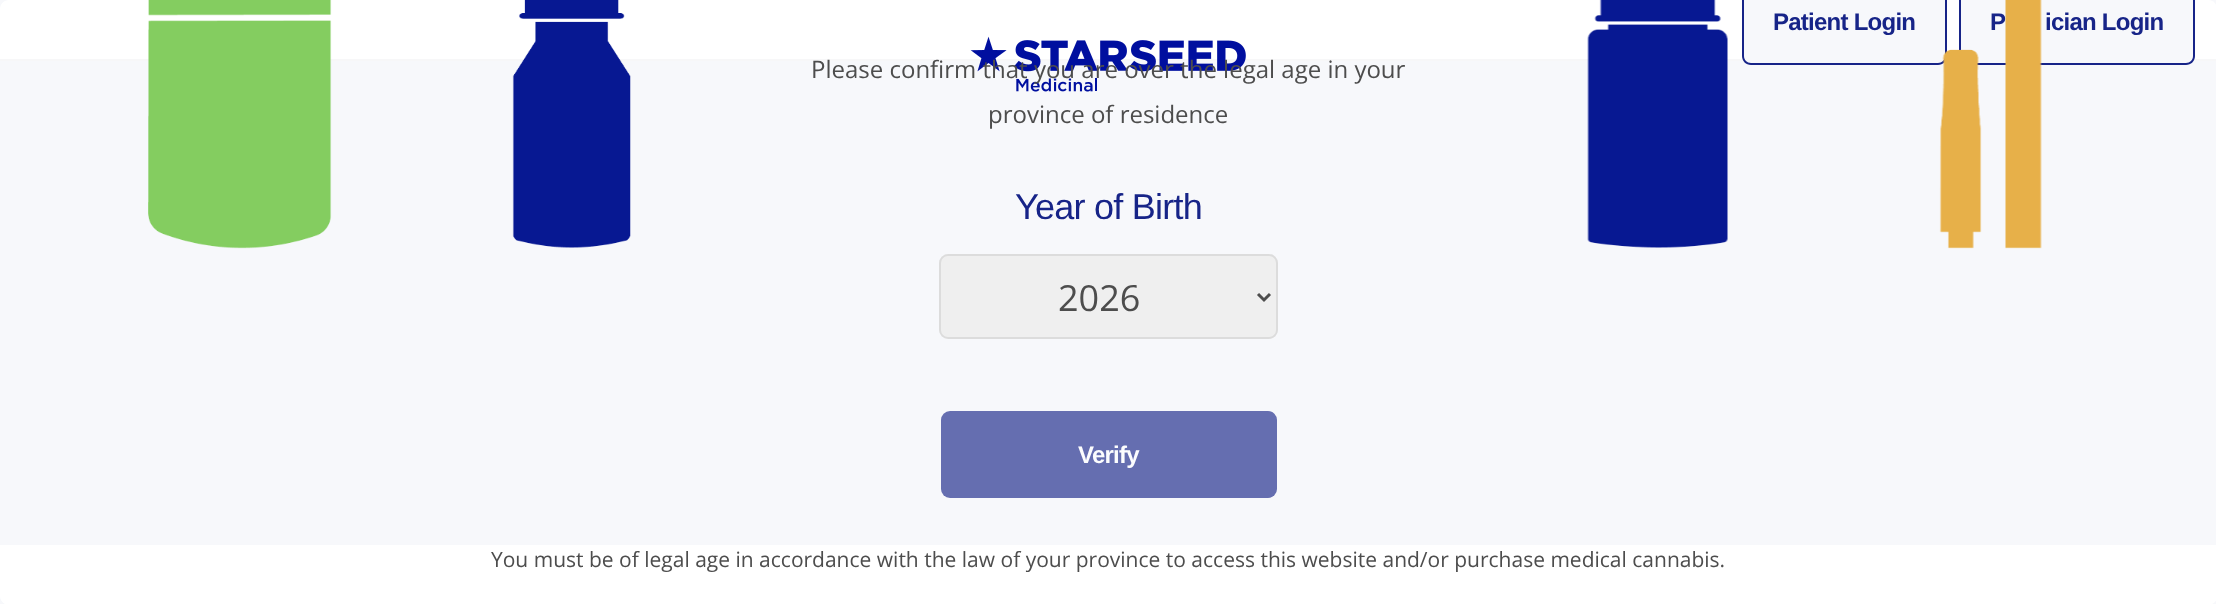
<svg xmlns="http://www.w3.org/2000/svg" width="2216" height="604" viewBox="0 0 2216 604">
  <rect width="100%" height="100%" fill="#f7f8fb"/>
  <path d="M9 0H2208C2213 0 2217 4 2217 9V60H0V9C0 4 4 0 9 0Z" fill="#fff"/>
  <path d="M0 59h2216v2H0z" fill="#f7f7f8"/>
  <path d="M1742 0H1947V56C1947 61 1943 65 1938 65H1751C1746 65 1742 61 1742 56Z" fill="#f7f8fb"/>
  <path d="M1947 0V56C1947 61 1943 65 1938 65H1751C1746 65 1742 61 1742 56V0H1744V56C1744 60 1747 63 1751 63H1938C1942 63 1945 60 1945 56V0Z" fill="#172488"/>
  <path d="M1959 0H2195V56C2195 61 2191 65 2186 65H1968C1963 65 1959 61 1959 56Z" fill="#f7f8fb"/>
  <path d="M2195 0V56C2195 61 2191 65 2186 65H1968C1963 65 1959 61 1959 56V0H1961V56C1961 60 1964 63 1968 63H2186C2190 63 2193 60 2193 56V0Z" fill="#172488"/>
  <image x="970" y="36" width="276" height="56" href="img/1.png"/>
  <image x="148" y="0" width="184" height="249" href="img/2.png"/>
  <image x="512" y="0" width="119" height="248" href="img/3.png"/>
  <rect x="939" y="254" width="339" height="85" rx="9" fill="#efefef"/>
  <rect x="940" y="255" width="337" height="83" rx="8" fill="none" stroke="#00000014" stroke-width="2"/>
  <path d="M1258 294L1264 300L1270 294" fill="none" stroke="#4d4d4d" stroke-width="3"/>
  <rect x="941" y="411" width="336" height="87" rx="9" fill="#656eb0"/>
  <image x="1587" y="0" width="141" height="248" href="img/4.png"/>
  <path d="M0 545H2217V596C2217 601 2213 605 2208 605H9C4 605 0 601 0 596Z" fill="#fff"/>
  <g font-family="Liberation Sans" font-size="24" font-weight="bold" letter-spacing="-0.75" fill="#172488">
    <text x="1773" y="30">Patient Login</text>
    <text x="1990" y="30">P</text>
    <text x="2045" y="30">ician Login</text>
  </g>
  <g font-family="Open Sans" font-size="24" fill="#4d4d4d">
    <text x="811" y="78">Please confirm that you are over the legal age in your</text>
    <text x="988" y="123">province of residence</text>
  </g>
  <text x="1015" y="219" font-family="Liberation Sans" font-size="36" letter-spacing="-0.75" fill="#172488">Year of Birth</text>
  <text x="1058" y="311" font-family="Open Sans" font-size="36" fill="#4d4d4d">2026</text>
  <text x="1078" y="463" font-family="Liberation Sans" font-size="24" font-weight="bold" letter-spacing="-0.75" fill="#fcfdfe">Verify</text>
  <image x="1939" y="0" width="103" height="249" href="img/5.png"/>
  <text x="491" y="567" font-family="Open Sans" font-size="21" fill="#4d4d4d">You must be of legal age in accordance with the law of your province to access this website and/or purchase medical cannabis.</text>
</svg>
